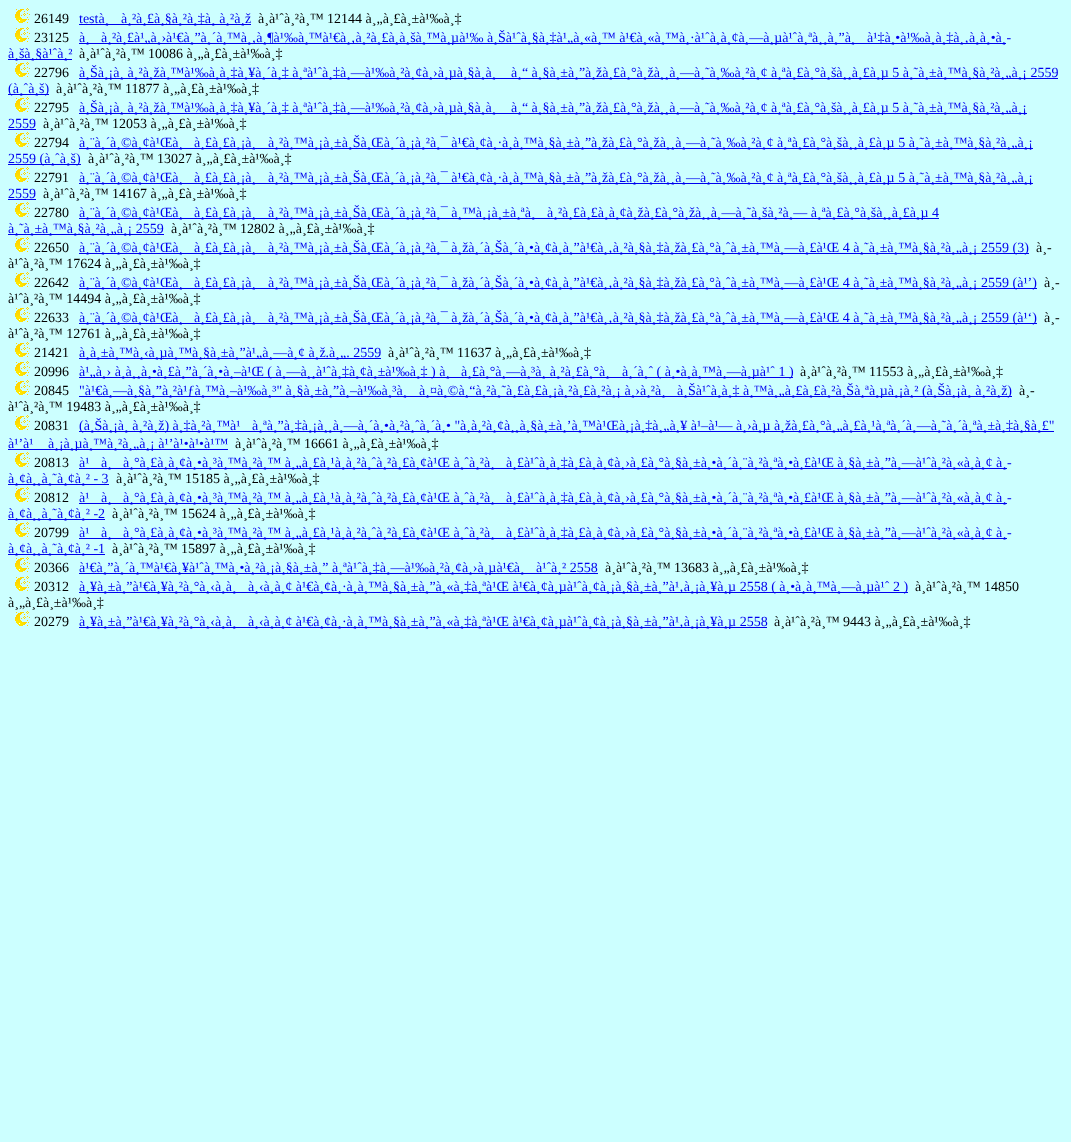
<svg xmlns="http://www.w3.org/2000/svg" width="1071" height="1142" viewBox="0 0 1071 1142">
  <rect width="100%" height="100%" fill="#cff"/>
  <image x="15" y="8" width="15" height="15" href="img/1.png"/>
  <path d="M79 24h172v1H79z" fill="#00e"/>
  <image x="15" y="27" width="15" height="15" href="img/1.png"/>
  <path d="M79 43h927v1H79z" fill="#00e"/>
  <path d="M8 59h64v1H8z" fill="#00e"/>
  <image x="15" y="62" width="15" height="15" href="img/1.png"/>
  <path d="M79 78h979v1H79z" fill="#00e"/>
  <path d="M8 94h41v1H8z" fill="#00e"/>
  <image x="15" y="97" width="15" height="15" href="img/1.png"/>
  <path d="M79 113h948v1H79z" fill="#00e"/>
  <path d="M8 129h28v1H8z" fill="#00e"/>
  <image x="15" y="132" width="15" height="15" href="img/1.png"/>
  <path d="M79 148h954v1H79z" fill="#00e"/>
  <path d="M8 164h73v1H8z" fill="#00e"/>
  <image x="15" y="167" width="15" height="15" href="img/1.png"/>
  <path d="M79 183h954v1H79z" fill="#00e"/>
  <path d="M8 199h28v1H8z" fill="#00e"/>
  <image x="15" y="202" width="15" height="15" href="img/1.png"/>
  <path d="M79 218h860v1H79z" fill="#00e"/>
  <path d="M8 234h156v1H8z" fill="#00e"/>
  <image x="15" y="237" width="15" height="15" href="img/1.png"/>
  <path d="M79 253h950v1H79z" fill="#00e"/>
  <image x="15" y="272" width="15" height="15" href="img/1.png"/>
  <path d="M79 288h958v1H79z" fill="#00e"/>
  <image x="15" y="307" width="15" height="15" href="img/1.png"/>
  <path d="M79 323h958v1H79z" fill="#00e"/>
  <image x="15" y="342" width="15" height="15" href="img/1.png"/>
  <path d="M79 358h302v1H79z" fill="#00e"/>
  <image x="15" y="361" width="15" height="15" href="img/1.png"/>
  <path d="M79 377h714v1H79z" fill="#00e"/>
  <image x="15" y="380" width="15" height="15" href="img/1.png"/>
  <path d="M79 396h933v1H79z" fill="#00e"/>
  <image x="15" y="415" width="15" height="15" href="img/1.png"/>
  <path d="M79 431h975v1H79z" fill="#00e"/>
  <path d="M8 449h220v1H8z" fill="#00e"/>
  <image x="15" y="452" width="15" height="15" href="img/1.png"/>
  <path d="M79 468h928v1H79z" fill="#00e"/>
  <path d="M8 484h101v1H8z" fill="#00e"/>
  <image x="15" y="487" width="15" height="15" href="img/1.png"/>
  <path d="M79 503h928v1H79z" fill="#00e"/>
  <path d="M8 519h97v1H8z" fill="#00e"/>
  <image x="15" y="522" width="15" height="15" href="img/1.png"/>
  <path d="M79 538h928v1H79z" fill="#00e"/>
  <path d="M8 554h97v1H8z" fill="#00e"/>
  <image x="15" y="557" width="15" height="15" href="img/1.png"/>
  <path d="M79 573h519v1H79z" fill="#00e"/>
  <image x="15" y="576" width="15" height="15" href="img/1.png"/>
  <path d="M79 592h829v1H79z" fill="#00e"/>
  <image x="15" y="611" width="15" height="15" href="img/1.png"/>
  <path d="M79 627h688v1H79z" fill="#00e"/>
  <text x="34" y="23" font-family="Liberation Serif" font-size="14" fill="#000">26149</text>
  <g font-family="Liberation Serif" font-size="14" fill="#00e">
    <text x="79" y="23">testà¸</text>
    <text x="121" y="23">à¸²à¸£à¸§à¸²à¸‡à¸ à¸²à¸ž</text>
  </g>
  <g font-family="Liberation Serif" font-size="14" fill="#000">
    <text x="258" y="23">à¸à¹ˆà¸²à¸™ 12144 à¸„à¸£à¸±à¹‰à¸‡</text>
    <text x="34" y="42">23125</text>
  </g>
  <g font-family="Liberation Serif" font-size="14" fill="#00e">
    <text x="79" y="42">à¸</text>
    <text x="101" y="42">à¸²à¸£à¹„à¸›à¹€à¸”à¸´à¸™à¸‚à¸¶à¹‰à¸™à¹€à¸‚à¸²à¸£à¸à¸šà¸™à¸µà¹‰ à¸Šà¹ˆà¸§à¸‡à¹„à¸«à¸™ à¹€à¸«à¸™à¸·à¹ˆà¸à¸¢à¸—à¸µà¹ˆà¸ªà¸¸à¸”à¸</text>
    <text x="867" y="42">à¹‡à¸•à¹‰à¸à¸‡à¸‚à¸à¸•à¸-</text>
    <text x="8" y="58">à¸šà¸§à¹ˆà¸²</text>
  </g>
  <g font-family="Liberation Serif" font-size="14" fill="#000">
    <text x="79" y="58">à¸à¹ˆà¸²à¸™ 10086 à¸„à¸£à¸±à¹‰à¸‡</text>
    <text x="34" y="77">22796</text>
  </g>
  <g font-family="Liberation Serif" font-size="14" fill="#00e">
    <text x="79" y="77">à¸Šà¸¡à¸ à¸²à¸žà¸™à¹‰à¸à¸‡à¸¥à¸´à¸‡ à¸ªà¹ˆà¸‡à¸—à¹‰à¸²à¸¢à¸›à¸µà¸§à¸à¸</text>
    <text x="511" y="77">à¸“ à¸§à¸±à¸”à¸žà¸£à¸°à¸žà¸¸à¸—à¸˜à¸‰à¸²à¸¢ à¸ªà¸£à¸°à¸šà¸¸à¸£à¸µ 5 à¸˜à¸±à¸™à¸§à¸²à¸„à¸¡ 2559</text>
    <text x="8" y="93">(à¸ˆà¸š)</text>
  </g>
  <g font-family="Liberation Serif" font-size="14" fill="#000">
    <text x="56" y="93">à¸à¹ˆà¸²à¸™ 11877 à¸„à¸£à¸±à¹‰à¸‡</text>
    <text x="34" y="112">22795</text>
  </g>
  <g font-family="Liberation Serif" font-size="14" fill="#00e">
    <text x="79" y="112">à¸Šà¸¡à¸ à¸²à¸žà¸™à¹‰à¸à¸‡à¸¥à¸´à¸‡ à¸ªà¹ˆà¸‡à¸—à¹‰à¸²à¸¢à¸›à¸µà¸§à¸à¸</text>
    <text x="511" y="112">à¸“ à¸§à¸±à¸”à¸žà¸£à¸°à¸žà¸¸à¸—à¸˜à¸‰à¸²à¸¢ à¸ªà¸£à¸°à¸šà¸¸à¸£à¸µ 5 à¸˜à¸±à¸™à¸§à¸²à¸„à¸¡</text>
    <text x="8" y="128">2559</text>
  </g>
  <g font-family="Liberation Serif" font-size="14" fill="#000">
    <text x="43" y="128">à¸à¹ˆà¸²à¸™ 12053 à¸„à¸£à¸±à¹‰à¸‡</text>
    <text x="34" y="147">22794</text>
  </g>
  <g font-family="Liberation Serif" font-size="14" fill="#00e">
    <text x="79" y="147">à¸¨à¸´à¸©à¸¢à¹Œà¸</text>
    <text x="194" y="147">à¸£à¸£à¸¡à¸</text>
    <text x="268" y="147">à¸²à¸™à¸¡à¸±à¸Šà¸Œà¸´à¸¡à¸²à¸¯ à¹€à¸¢à¸·à¸à¸™à¸§à¸±à¸”à¸žà¸£à¸°à¸žà¸¸à¸—à¸˜à¸‰à¸²à¸¢ à¸ªà¸£à¸°à¸šà¸¸à¸£à¸µ 5 à¸˜à¸±à¸™à¸§à¸²à¸„à¸¡</text>
    <text x="8" y="163">2559 (à¸ˆà¸š)</text>
  </g>
  <g font-family="Liberation Serif" font-size="14" fill="#000">
    <text x="88" y="163">à¸à¹ˆà¸²à¸™ 13027 à¸„à¸£à¸±à¹‰à¸‡</text>
    <text x="34" y="182">22791</text>
  </g>
  <g font-family="Liberation Serif" font-size="14" fill="#00e">
    <text x="79" y="182">à¸¨à¸´à¸©à¸¢à¹Œà¸</text>
    <text x="194" y="182">à¸£à¸£à¸¡à¸</text>
    <text x="268" y="182">à¸²à¸™à¸¡à¸±à¸Šà¸Œà¸´à¸¡à¸²à¸¯ à¹€à¸¢à¸·à¸à¸™à¸§à¸±à¸”à¸žà¸£à¸°à¸žà¸¸à¸—à¸˜à¸‰à¸²à¸¢ à¸ªà¸£à¸°à¸šà¸¸à¸£à¸µ 5 à¸˜à¸±à¸™à¸§à¸²à¸„à¸¡</text>
    <text x="8" y="198">2559</text>
  </g>
  <g font-family="Liberation Serif" font-size="14" fill="#000">
    <text x="43" y="198">à¸à¹ˆà¸²à¸™ 14167 à¸„à¸£à¸±à¹‰à¸‡</text>
    <text x="34" y="217">22780</text>
  </g>
  <g font-family="Liberation Serif" font-size="14" fill="#00e">
    <text x="79" y="217">à¸¨à¸´à¸©à¸¢à¹Œà¸</text>
    <text x="194" y="217">à¸£à¸£à¸¡à¸</text>
    <text x="268" y="217">à¸²à¸™à¸¡à¸±à¸Šà¸Œà¸´à¸¡à¸²à¸¯ à¸™à¸¡à¸±à¸ªà¸</text>
    <text x="547" y="217">à¸²à¸£à¸£à¸à¸¢à¸žà¸£à¸°à¸žà¸¸à¸—à¸˜à¸šà¸²à¸— à¸ªà¸£à¸°à¸šà¸¸à¸£à¸µ 4</text>
    <text x="8" y="233">à¸˜à¸±à¸™à¸§à¸²à¸„à¸¡ 2559</text>
  </g>
  <g font-family="Liberation Serif" font-size="14" fill="#000">
    <text x="171" y="233">à¸à¹ˆà¸²à¸™ 12802 à¸„à¸£à¸±à¹‰à¸‡</text>
    <text x="34" y="252">22650</text>
  </g>
  <g font-family="Liberation Serif" font-size="14" fill="#00e">
    <text x="79" y="252">à¸¨à¸´à¸©à¸¢à¹Œà¸</text>
    <text x="194" y="252">à¸£à¸£à¸¡à¸</text>
    <text x="268" y="252">à¸²à¸™à¸¡à¸±à¸Šà¸Œà¸´à¸¡à¸²à¸¯ à¸žà¸´à¸Šà¸´à¸•à¸¢à¸à¸”à¹€à¸‚à¸²à¸§à¸‡à¸žà¸£à¸°à¸ˆà¸±à¸™à¸—à¸£à¹Œ 4 à¸˜à¸±à¸™à¸§à¸²à¸„à¸¡ 2559 (3)</text>
  </g>
  <g font-family="Liberation Serif" font-size="14" fill="#000">
    <text x="1036" y="252">à¸-</text>
    <text x="8" y="268">à¹ˆà¸²à¸™ 17624 à¸„à¸£à¸±à¹‰à¸‡</text>
    <text x="34" y="287">22642</text>
  </g>
  <g font-family="Liberation Serif" font-size="14" fill="#00e">
    <text x="79" y="287">à¸¨à¸´à¸©à¸¢à¹Œà¸</text>
    <text x="194" y="287">à¸£à¸£à¸¡à¸</text>
    <text x="268" y="287">à¸²à¸™à¸¡à¸±à¸Šà¸Œà¸´à¸¡à¸²à¸¯ à¸žà¸´à¸Šà¸´à¸•à¸¢à¸à¸”à¹€à¸‚à¸²à¸§à¸‡à¸žà¸£à¸°à¸ˆà¸±à¸™à¸—à¸£à¹Œ 4 à¸˜à¸±à¸™à¸§à¸²à¸„à¸¡ 2559 (à¹’)</text>
  </g>
  <g font-family="Liberation Serif" font-size="14" fill="#000">
    <text x="1044" y="287">à¸-</text>
    <text x="8" y="303">à¹ˆà¸²à¸™ 14494 à¸„à¸£à¸±à¹‰à¸‡</text>
    <text x="34" y="322">22633</text>
  </g>
  <g font-family="Liberation Serif" font-size="14" fill="#00e">
    <text x="79" y="322">à¸¨à¸´à¸©à¸¢à¹Œà¸</text>
    <text x="194" y="322">à¸£à¸£à¸¡à¸</text>
    <text x="268" y="322">à¸²à¸™à¸¡à¸±à¸Šà¸Œà¸´à¸¡à¸²à¸¯ à¸žà¸´à¸Šà¸´à¸•à¸¢à¸à¸”à¹€à¸‚à¸²à¸§à¸‡à¸žà¸£à¸°à¸ˆà¸±à¸™à¸—à¸£à¹Œ 4 à¸˜à¸±à¸™à¸§à¸²à¸„à¸¡ 2559 (à¹‘)</text>
  </g>
  <g font-family="Liberation Serif" font-size="14" fill="#000">
    <text x="1044" y="322">à¸-</text>
    <text x="8" y="338">à¹ˆà¸²à¸™ 12761 à¸„à¸£à¸±à¹‰à¸‡</text>
    <text x="34" y="357">21421</text>
  </g>
  <text x="79" y="357" font-family="Liberation Serif" font-size="14" fill="#00e">à¸à¸±à¸™à¸‹à¸µà¸™à¸§à¸±à¸”à¹„à¸—à¸¢ à¸ž.à¸„. 2559</text>
  <g font-family="Liberation Serif" font-size="14" fill="#000">
    <text x="388" y="357">à¸à¹ˆà¸²à¸™ 11637 à¸„à¸£à¸±à¹‰à¸‡</text>
    <text x="34" y="376">20996</text>
  </g>
  <g font-family="Liberation Serif" font-size="14" fill="#00e">
    <text x="79" y="376">à¹„à¸› à¸à¸¸à¸•à¸£à¸”à¸´à¸•à¸–à¹Œ ( à¸—à¸¸à¹ˆà¸‡à¸¢à¸±à¹‰à¸‡ ) à¸</text>
    <text x="461" y="376">à¸£à¸°à¸—à¸³à¸ à¸²à¸£à¸°à¸</text>
    <text x="622" y="376">à¸´à¸ˆ ( à¸•à¸à¸™à¸—à¸µà¹ˆ 1 )</text>
  </g>
  <g font-family="Liberation Serif" font-size="14" fill="#000">
    <text x="800" y="376">à¸à¹ˆà¸²à¸™ 11553 à¸„à¸£à¸±à¹‰à¸‡</text>
    <text x="34" y="395">20845</text>
  </g>
  <g font-family="Liberation Serif" font-size="14" fill="#00e">
    <text x="79" y="395">"à¹€à¸—à¸§à¸”à¸²à¹ƒà¸™à¸–à¹‰à¸³" à¸§à¸±à¸”à¸–à¹‰à¸³à¸</text>
    <text x="419" y="395">à¸¤à¸©à¸“à¸²à¸˜à¸£à¸£à¸¡à¸²à¸£à¸²à¸¡ à¸›à¸²à¸</text>
    <text x="677" y="395">à¸Šà¹ˆà¸à¸‡ à¸™à¸„à¸£à¸£à¸²à¸Šà¸ªà¸µà¸¡à¸² (à¸Šà¸¡à¸ à¸²à¸ž)</text>
  </g>
  <g font-family="Liberation Serif" font-size="14" fill="#000">
    <text x="1019" y="395">à¸-</text>
    <text x="8" y="411">à¹ˆà¸²à¸™ 19483 à¸„à¸£à¸±à¹‰à¸‡</text>
    <text x="34" y="430">20831</text>
  </g>
  <g font-family="Liberation Serif" font-size="14" fill="#00e">
    <text x="79" y="430">(à¸Šà¸¡à¸ à¸²à¸ž) à¸‡à¸²à¸™à¹</text>
    <text x="252" y="430">à¸ªà¸”à¸‡à¸¡à¸¸à¸—à¸´à¸•à¸²à¸ˆà¸´à¸• "à¸à¸²à¸¢à¸¸à¸§à¸±à¸’à¸™à¹Œà¸¡à¸‡à¸„à¸¥ à¹–à¹— à¸›à¸µ à¸žà¸£à¸°à¸„à¸£à¸¹à¸ªà¸´à¸—à¸˜à¸´à¸ªà¸±à¸‡à¸§à¸£"</text>
    <text x="8" y="448">à¹’à¹</text>
    <text x="48" y="448">à¸¡à¸µà¸™à¸²à¸„à¸¡ à¹’à¹•à¹•à¹™</text>
  </g>
  <g font-family="Liberation Serif" font-size="14" fill="#000">
    <text x="235" y="448">à¸à¹ˆà¸²à¸™ 16661 à¸„à¸£à¸±à¹‰à¸‡</text>
    <text x="34" y="467">20813</text>
  </g>
  <g font-family="Liberation Serif" font-size="14" fill="#00e">
    <text x="79" y="467">à¹</text>
    <text x="101" y="467">à¸</text>
    <text x="123" y="467">à¸°à¸£à¸à¸¢à¸•à¸³à¸™à¸²à¸™ à¸„à¸£à¸¹à¸à¸²à¸ˆà¸²à¸£à¸¢à¹Œ à¸ˆà¸²à¸</text>
    <text x="506" y="467">à¸£à¹ˆà¸à¸‡à¸£à¸à¸¢à¸›à¸£à¸°à¸§à¸±à¸•à¸´à¸¨à¸²à¸ªà¸•à¸£à¹Œ à¸§à¸±à¸”à¸—à¹ˆà¸²à¸«à¸à¸¢ à¸-</text>
    <text x="8" y="483">à¸¢à¸¸à¸˜à¸¢à¸² - 3</text>
  </g>
  <g font-family="Liberation Serif" font-size="14" fill="#000">
    <text x="116" y="483">à¸à¹ˆà¸²à¸™ 15185 à¸„à¸£à¸±à¹‰à¸‡</text>
    <text x="34" y="502">20812</text>
  </g>
  <g font-family="Liberation Serif" font-size="14" fill="#00e">
    <text x="79" y="502">à¹</text>
    <text x="101" y="502">à¸</text>
    <text x="123" y="502">à¸°à¸£à¸à¸¢à¸•à¸³à¸™à¸²à¸™ à¸„à¸£à¸¹à¸à¸²à¸ˆà¸²à¸£à¸¢à¹Œ à¸ˆà¸²à¸</text>
    <text x="506" y="502">à¸£à¹ˆà¸à¸‡à¸£à¸à¸¢à¸›à¸£à¸°à¸§à¸±à¸•à¸´à¸¨à¸²à¸ªà¸•à¸£à¹Œ à¸§à¸±à¸”à¸—à¹ˆà¸²à¸«à¸à¸¢ à¸-</text>
    <text x="8" y="518">à¸¢à¸¸à¸˜à¸¢à¸² -2</text>
  </g>
  <g font-family="Liberation Serif" font-size="14" fill="#000">
    <text x="112" y="518">à¸à¹ˆà¸²à¸™ 15624 à¸„à¸£à¸±à¹‰à¸‡</text>
    <text x="34" y="537">20799</text>
  </g>
  <g font-family="Liberation Serif" font-size="14" fill="#00e">
    <text x="79" y="537">à¹</text>
    <text x="101" y="537">à¸</text>
    <text x="123" y="537">à¸°à¸£à¸à¸¢à¸•à¸³à¸™à¸²à¸™ à¸„à¸£à¸¹à¸à¸²à¸ˆà¸²à¸£à¸¢à¹Œ à¸ˆà¸²à¸</text>
    <text x="506" y="537">à¸£à¹ˆà¸à¸‡à¸£à¸à¸¢à¸›à¸£à¸°à¸§à¸±à¸•à¸´à¸¨à¸²à¸ªà¸•à¸£à¹Œ à¸§à¸±à¸”à¸—à¹ˆà¸²à¸«à¸à¸¢ à¸-</text>
    <text x="8" y="553">à¸¢à¸¸à¸˜à¸¢à¸² -1</text>
  </g>
  <g font-family="Liberation Serif" font-size="14" fill="#000">
    <text x="112" y="553">à¸à¹ˆà¸²à¸™ 15897 à¸„à¸£à¸±à¹‰à¸‡</text>
    <text x="34" y="572">20366</text>
  </g>
  <g font-family="Liberation Serif" font-size="14" fill="#00e">
    <text x="79" y="572">à¹€à¸”à¸´à¸™à¹€à¸¥à¹ˆà¸™à¸•à¸²à¸¡à¸§à¸±à¸” à¸ªà¹ˆà¸‡à¸—à¹‰à¸²à¸¢à¸›à¸µà¹€à¸</text>
    <text x="536" y="572">à¹ˆà¸² 2558</text>
  </g>
  <g font-family="Liberation Serif" font-size="14" fill="#000">
    <text x="605" y="572">à¸à¹ˆà¸²à¸™ 13683 à¸„à¸£à¸±à¹‰à¸‡</text>
    <text x="34" y="591">20312</text>
  </g>
  <g font-family="Liberation Serif" font-size="14" fill="#00e">
    <text x="79" y="591">à¸¥à¸±à¸”à¹€à¸¥à¸²à¸°à¸‹à¸à¸</text>
    <text x="248" y="591">à¸‹à¸à¸¢ à¹€à¸¢à¸·à¸à¸™à¸§à¸±à¸”à¸«à¸‡à¸ªà¹Œ à¹€à¸¢à¸µà¹ˆà¸¢à¸¡à¸§à¸±à¸”à¹‚à¸¡à¸¥à¸µ 2558 ( à¸•à¸à¸™à¸—à¸µà¹ˆ 2 )</text>
  </g>
  <g font-family="Liberation Serif" font-size="14" fill="#000">
    <text x="915" y="591">à¸à¹ˆà¸²à¸™ 14850</text>
    <text x="8" y="607">à¸„à¸£à¸±à¹‰à¸‡</text>
    <text x="34" y="626">20279</text>
  </g>
  <g font-family="Liberation Serif" font-size="14" fill="#00e">
    <text x="79" y="626">à¸¥à¸±à¸”à¹€à¸¥à¸²à¸°à¸‹à¸à¸</text>
    <text x="248" y="626">à¸‹à¸à¸¢ à¹€à¸¢à¸·à¸à¸™à¸§à¸±à¸”à¸«à¸‡à¸ªà¹Œ à¹€à¸¢à¸µà¹ˆà¸¢à¸¡à¸§à¸±à¸”à¹‚à¸¡à¸¥à¸µ 2558</text>
  </g>
  <text x="774" y="626" font-family="Liberation Serif" font-size="14" fill="#000">à¸à¹ˆà¸²à¸™ 9443 à¸„à¸£à¸±à¹‰à¸‡</text>
</svg>
